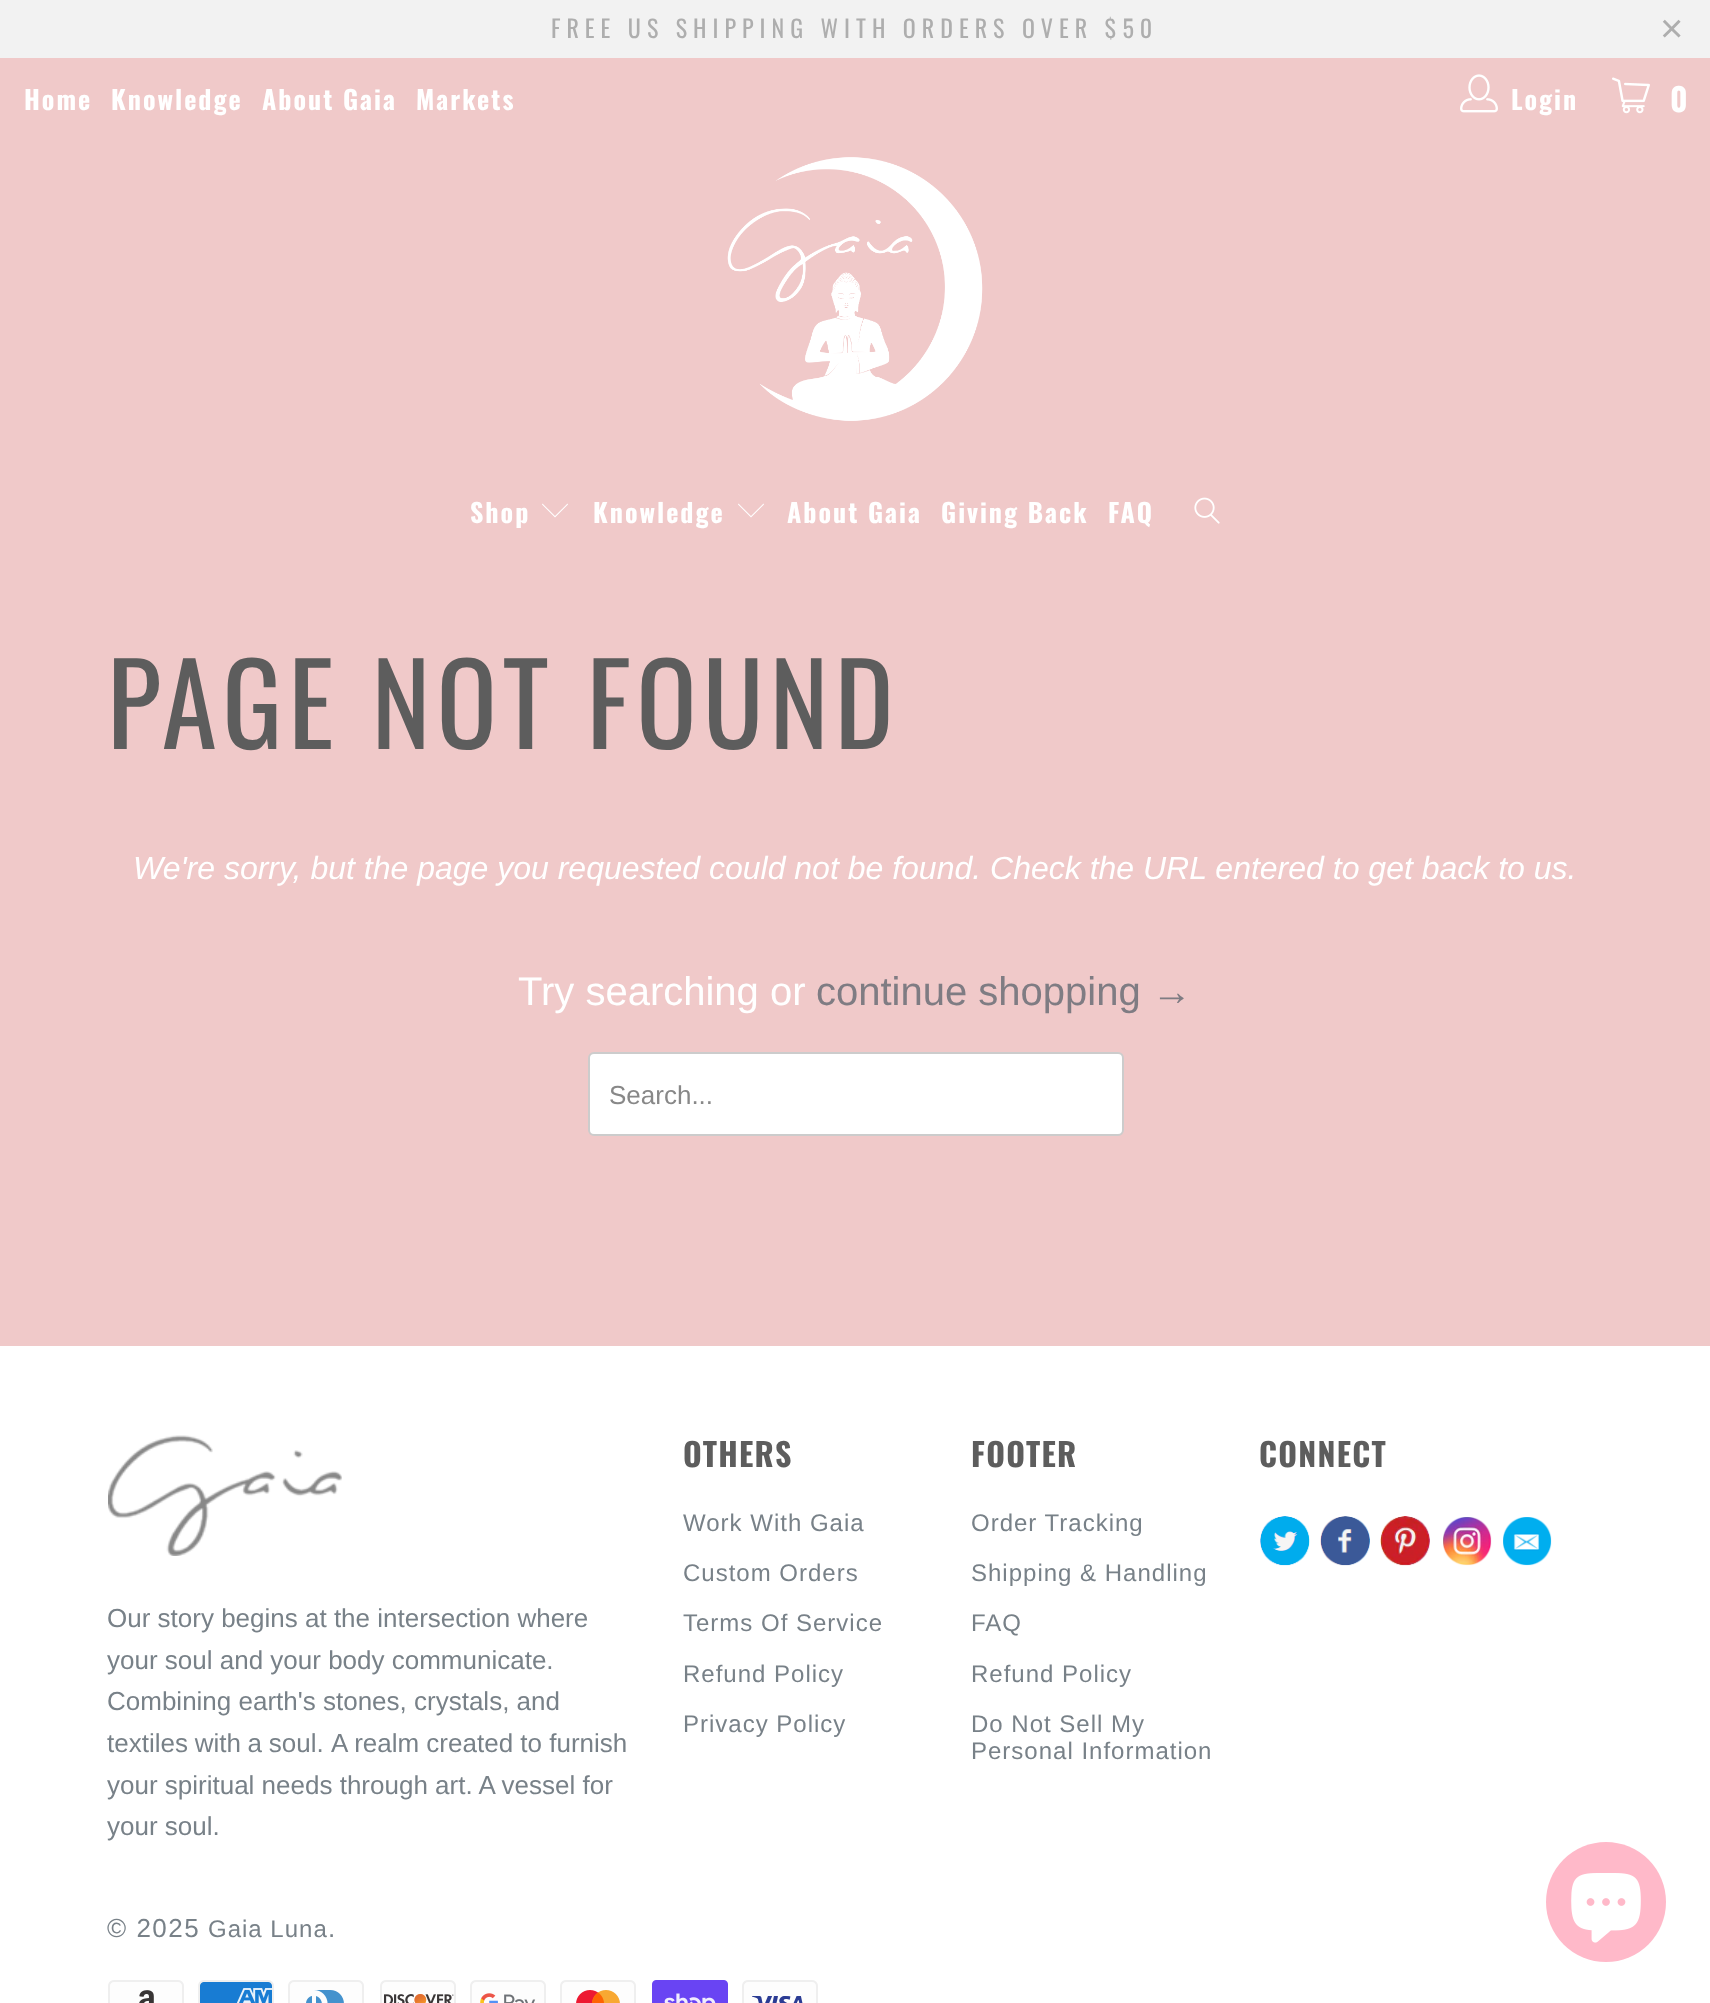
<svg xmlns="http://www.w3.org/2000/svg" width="1710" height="2003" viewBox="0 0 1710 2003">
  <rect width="100%" height="100%" fill="#f0c9c9"/>
  <path d="M0 0h1710v58H0z" fill="#f2f2f2"/>
  <image x="1460" y="74" width="38" height="39" href="img/1.png"/>
  <image x="1612" y="77" width="38" height="37" href="img/2.png"/>
  <image x="727" y="157" width="256" height="264" href="img/3.png"/>
  <path d="M555 517.5L542 504.5L542.5 503.5L555 516L567.5 503.5L568 504.5Z" fill="#fff"/>
  <path d="M751 517.5L738 504.5L738.5 503.5L751 516L763.5 503.5L764 504.5Z" fill="#fff"/>
  <image x="1194" y="497" width="26" height="27" href="img/4.png"/>
  <rect x="589" y="1053" width="534" height="82" rx="5" fill="#fff" stroke="#ccc" stroke-width="2"/>
  <path d="M0 1346h1710v657H0z" fill="#fff"/>
  <image x="1260" y="1516" width="50" height="50" href="img/5.png"/>
  <image x="1320" y="1516" width="50" height="50" href="img/6.png"/>
  <image x="1380" y="1516" width="50" height="50" href="img/7.png"/>
  <image x="1443" y="1517" width="49" height="49" href="img/8.png"/>
  <image x="1503" y="1517" width="49" height="49" href="img/9.png"/>
  <image x="108" y="1435" width="234" height="121" href="img/10.png"/>
  <image x="108" y="1980" width="76" height="23" href="img/11.png"/>
  <image x="198" y="1980" width="76" height="23" href="img/12.png"/>
  <image x="288" y="1980" width="76" height="23" href="img/13.png"/>
  <image x="380" y="1980" width="76" height="23" href="img/14.png"/>
  <image x="470" y="1980" width="76" height="23" href="img/15.png"/>
  <image x="560" y="1980" width="76" height="23" href="img/16.png"/>
  <image x="652" y="1980" width="76" height="23" href="img/17.png"/>
  <image x="742" y="1980" width="76" height="23" href="img/18.png"/>
  <circle cx="1606" cy="1902" r="60" fill="#ffb9c9"/>
  <image x="1571" y="1873" width="70" height="70" href="img/19.png"/>
  <text x="551" y="38" font-family="Oswald" font-size="24" letter-spacing="6" fill="#aeaeae">FREE US SHIPPING WITH ORDERS OVER $50</text>
  <text x="1660" y="42" font-family="Liberation Sans" font-size="40" letter-spacing="6" fill="#aeaeae">×</text>
  <g font-family="Oswald" font-size="26" font-weight="bold" letter-spacing="2" fill="#fff">
    <text x="24" y="110">Home</text>
    <text x="111" y="110">Knowledge</text>
    <text x="262" y="110">About Gaia</text>
    <text x="416" y="110">Markets</text>
    <text x="1511" y="110">Login</text>
  </g>
  <text x="1670" y="112" font-family="Oswald" font-size="32" font-weight="bold" letter-spacing="2" fill="#fff">0</text>
  <g font-family="Oswald" font-size="26" font-weight="bold" letter-spacing="2" fill="#fff">
    <text x="470" y="523">Shop</text>
    <text x="593" y="523">Knowledge</text>
    <text x="787" y="523">About Gaia</text>
    <text x="941" y="523">Giving Back</text>
    <text x="1108" y="523">FAQ</text>
  </g>
  <text x="107" y="749" font-family="Oswald" font-size="112" letter-spacing="6" fill="#5d5d5d">PAGE NOT FOUND</text>
  <text x="133" y="879" font-family="Liberation Sans" font-size="32" font-style="italic" fill="#fff">We're sorry, but the page you requested could not be found. Check the URL entered to get back to us.</text>
  <text x="518" y="1005" font-family="Liberation Sans" font-size="40" fill="#fff">Try searching or</text>
  <text x="816" y="1005" font-family="Liberation Sans" font-size="40" fill="#7f7c83">continue shopping →</text>
  <text x="609" y="1104" font-family="Liberation Sans" font-size="26" fill="#888">Search...</text>
  <text x="683" y="1467" font-family="Oswald" font-size="32" font-weight="bold" letter-spacing="1.25" fill="#5d5d5d">OTHERS</text>
  <g font-family="Liberation Sans" font-size="24" letter-spacing="1" fill="#788188">
    <text x="683" y="1531">Work With Gaia</text>
    <text x="683" y="1581">Custom Orders</text>
    <text x="683" y="1631">Terms Of Service</text>
    <text x="683" y="1682">Refund Policy</text>
    <text x="683" y="1732">Privacy Policy</text>
  </g>
  <text x="971" y="1467" font-family="Oswald" font-size="32" font-weight="bold" letter-spacing="1.25" fill="#5d5d5d">FOOTER</text>
  <g font-family="Liberation Sans" font-size="24" letter-spacing="1" fill="#788188">
    <text x="971" y="1531">Order Tracking</text>
    <text x="971" y="1581">Shipping &amp; Handling</text>
    <text x="971" y="1631">FAQ</text>
    <text x="971" y="1682">Refund Policy</text>
    <text x="971" y="1732">Do Not Sell My</text>
    <text x="971" y="1759">Personal Information</text>
  </g>
  <text x="1259" y="1467" font-family="Oswald" font-size="32" font-weight="bold" letter-spacing="1.25" fill="#5d5d5d">CONNECT</text>
  <g font-family="Liberation Sans" font-size="26" fill="#788188">
    <text x="107" y="1627">Our story begins at the intersection where</text>
    <text x="107" y="1669">your soul and your body communicate.</text>
    <text x="107" y="1710">Combining earth's stones, crystals, and</text>
    <text x="107" y="1752" word-spacing="-0.5">textiles with a soul.</text>
    <text x="331" y="1752">A realm created to furnish</text>
    <text x="107" y="1794">your spiritual needs through art. A vessel for</text>
    <text x="107" y="1835">your soul.</text>
  </g>
  <text x="107" y="1937" font-family="Liberation Sans" font-size="26" letter-spacing="1.5" fill="#788188">© 2025</text>
  <text x="208" y="1937" font-family="Liberation Sans" font-size="24" letter-spacing="1" fill="#788188">Gaia Luna</text>
  <text x="328" y="1937" font-family="Liberation Sans" font-size="26" letter-spacing="1.5" fill="#788188">.</text>
</svg>
